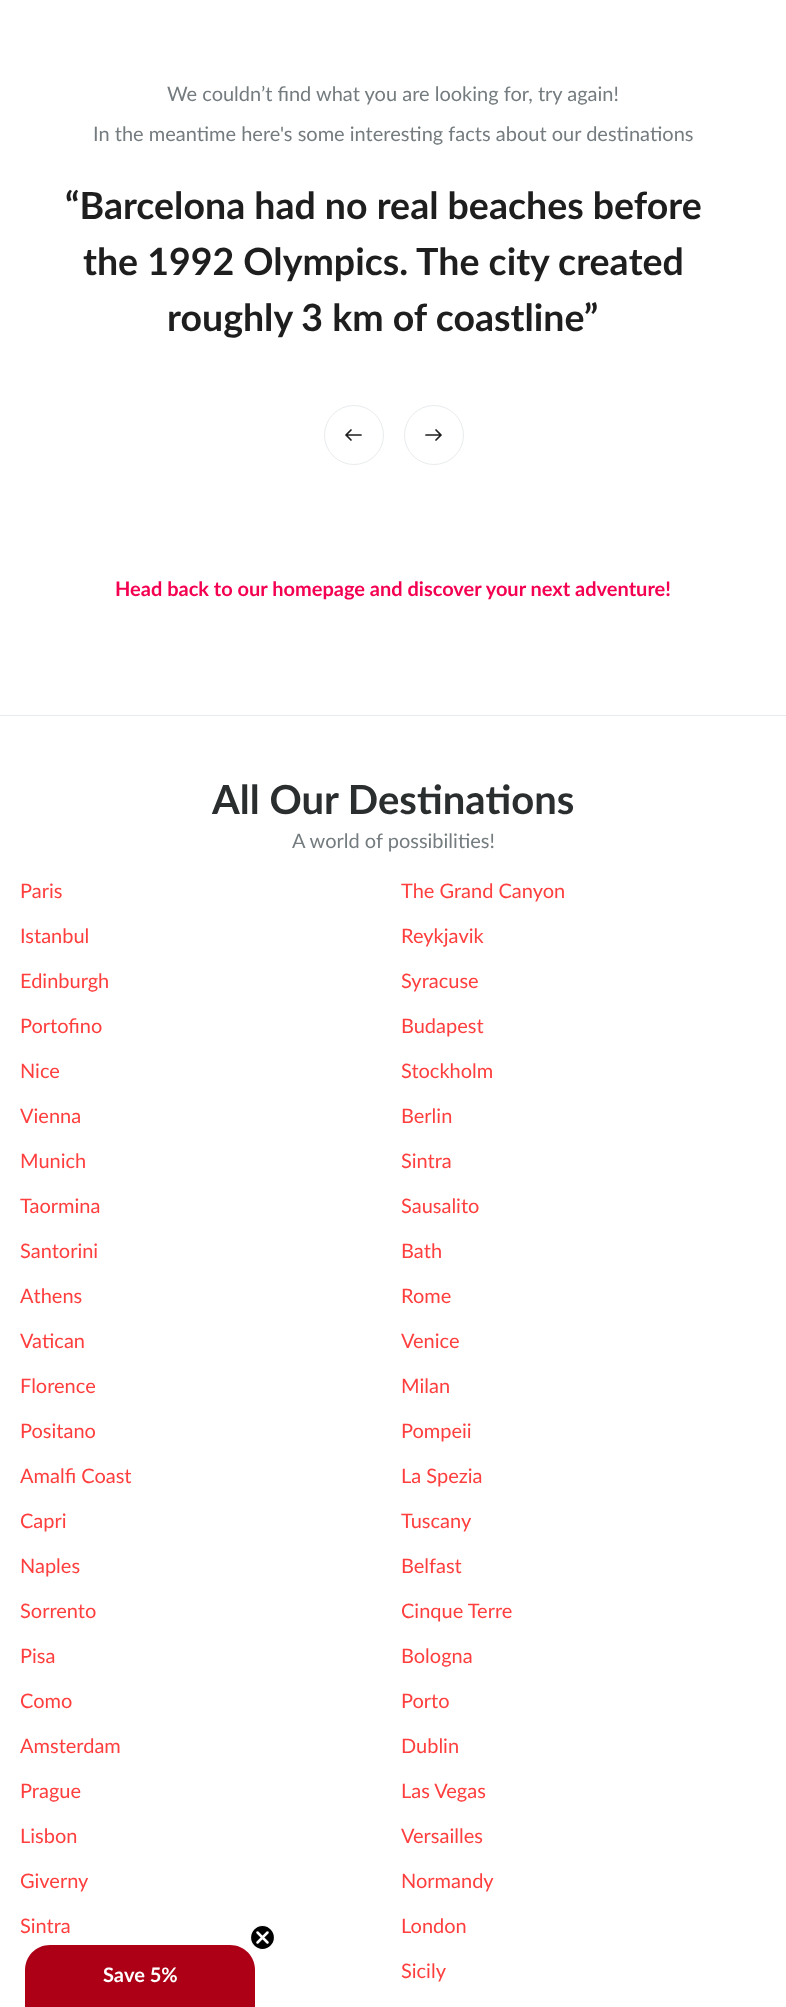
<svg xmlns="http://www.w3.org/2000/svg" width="786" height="2007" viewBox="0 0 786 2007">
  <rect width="100%" height="100%" fill="#fff"/>
  <circle cx="354" cy="435" r="29.5" fill="none" stroke="#e8ebed"/>
  <path d="M346 435H361M351 440L346 435L351 430" fill="none" stroke="#1e1e1e" stroke-width="1.7" stroke-linecap="round" stroke-linejoin="round"/>
  <circle cx="434" cy="435" r="29.5" fill="none" stroke="#e8ebed"/>
  <path d="M441 435H426M436 430L441 435L436 440" fill="none" stroke="#1e1e1e" stroke-width="1.7" stroke-linecap="round" stroke-linejoin="round"/>
  <path d="M0 715h786v1H0z" fill="#e8ebed"/>
  <path d="M50 1945H230C244 1945 255 1956 255 1970V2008H25V1970C25 1956 36 1945 50 1945Z" fill="#ad0017"/>
  <circle cx="262.5" cy="1937.5" r="12" fill="#000" stroke="#fff" stroke-width="1.2"/>
  <path d="M257.5 1932.5L267.5 1942.5M257.5 1942.5L267.5 1932.5Z" fill="none" stroke="#fff" stroke-width="2.5" stroke-linecap="round" stroke-linejoin="round"/>
  <g font-family="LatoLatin" font-size="20" fill="#757c7f">
    <text x="167" y="101">We couldn’t find what you are looking for, try again!</text>
    <text x="93" y="141">In the meantime here's some interesting facts about our destinations</text>
  </g>
  <g font-family="LatoLatin" font-size="37.5" font-weight="bold" fill="#1e1e1e">
    <text x="65" y="219">“Barcelona had no real beaches before</text>
    <text x="83" y="275">the 1992 Olympics. The city created</text>
    <text x="167" y="331">roughly 3 km of coastline”</text>
  </g>
  <text x="115" y="596" font-family="LatoLatin" font-size="20" font-weight="bold" fill="#f40051">Head back to our homepage and discover your next adventure!</text>
  <text x="212" y="814" font-family="LatoLatin" font-size="40" font-weight="bold" fill="#2b2e2f">All Our Destinations</text>
  <text x="292" y="848" font-family="LatoLatin" font-size="20" fill="#757c7f">A world of possibilities!</text>
  <g font-family="LatoLatin" font-size="20" fill="#ff3e3e">
    <text x="20" y="898">Paris</text>
    <text x="401" y="898">The Grand Canyon</text>
    <text x="20" y="943">Istanbul</text>
    <text x="401" y="943">Reykjavik</text>
    <text x="20" y="988">Edinburgh</text>
    <text x="401" y="988">Syracuse</text>
    <text x="20" y="1033">Portofino</text>
    <text x="401" y="1033">Budapest</text>
    <text x="20" y="1078">Nice</text>
    <text x="401" y="1078">Stockholm</text>
    <text x="20" y="1123">Vienna</text>
    <text x="401" y="1123">Berlin</text>
    <text x="20" y="1168">Munich</text>
    <text x="401" y="1168">Sintra</text>
    <text x="20" y="1213">Taormina</text>
    <text x="401" y="1213">Sausalito</text>
    <text x="20" y="1258">Santorini</text>
    <text x="401" y="1258">Bath</text>
    <text x="20" y="1303">Athens</text>
    <text x="401" y="1303">Rome</text>
    <text x="20" y="1348">Vatican</text>
    <text x="401" y="1348">Venice</text>
    <text x="20" y="1393">Florence</text>
    <text x="401" y="1393">Milan</text>
    <text x="20" y="1438">Positano</text>
    <text x="401" y="1438">Pompeii</text>
    <text x="20" y="1483">Amalfi Coast</text>
    <text x="401" y="1483">La Spezia</text>
    <text x="20" y="1528">Capri</text>
    <text x="401" y="1528">Tuscany</text>
    <text x="20" y="1573">Naples</text>
    <text x="401" y="1573">Belfast</text>
    <text x="20" y="1618">Sorrento</text>
    <text x="401" y="1618">Cinque Terre</text>
    <text x="20" y="1663">Pisa</text>
    <text x="401" y="1663">Bologna</text>
    <text x="20" y="1708">Como</text>
    <text x="401" y="1708">Porto</text>
    <text x="20" y="1753">Amsterdam</text>
    <text x="401" y="1753">Dublin</text>
    <text x="20" y="1798">Prague</text>
    <text x="401" y="1798">Las Vegas</text>
    <text x="20" y="1843">Lisbon</text>
    <text x="401" y="1843">Versailles</text>
    <text x="20" y="1888">Giverny</text>
    <text x="401" y="1888">Normandy</text>
    <text x="20" y="1933">Sintra</text>
    <text x="401" y="1933">London</text>
    <text x="401" y="1978">Sicily</text>
  </g>
  <text x="103" y="1982" font-family="LatoLatin" font-size="20" font-weight="bold" fill="#fff">Save 5%</text>
</svg>
